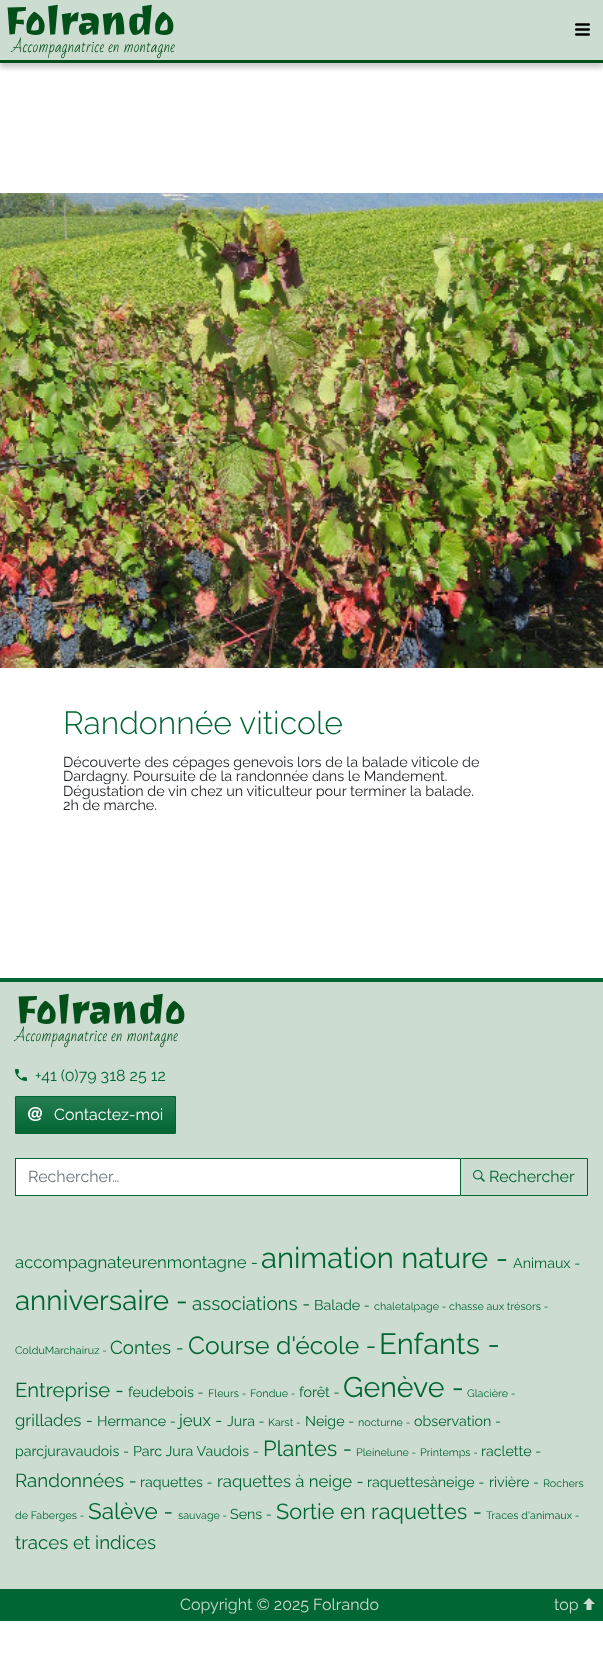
<svg xmlns="http://www.w3.org/2000/svg" width="603" height="1662" viewBox="0 0 603 1662">
  <defs>
    <linearGradient id="g1" gradientUnits="userSpaceOnUse" x1="96" y1="1097" x2="96" y2="1133"><stop offset="0" stop-color="#267d52"/><stop offset="1" stop-color="#063"/></linearGradient>
  </defs>
  <rect width="100%" height="100%" fill="#fff"/>
  <path d="M0 5h603v63H0z" fill="#00000033" filter="blur(2.5px)"/>
  <path d="M0 0h603v60H0z" fill="#cddcd1"/>
  <path d="M0 60h603v3H0z" fill="#034f1a"/>
  <image x="575" y="23" width="15" height="13" href="img/1.png"/>
  <image x="0" y="193" width="603" height="475" href="img/2.png"/>
  <path d="M0 982h603v607H0z" fill="#cddcd1"/>
  <path d="M0 978h603v4H0z" fill="#063"/>
  <image x="15" y="1069" width="12" height="12" href="img/3.png"/>
  <path d="M16 1097h159v36H16z" fill="url(#g1)"/>
  <path d="M15.5 1096.5h160v37H15.5z" fill="none" stroke="#063"/>
  <image x="28" y="1107" width="14" height="14" href="img/4.png"/>
  <path d="M16 1159h444v36H16z" fill="#fff"/>
  <path d="M15 1158h445v1H15z" fill="#063"/>
  <path d="M15 1195h445v1H15z" fill="#063"/>
  <path d="M15 1158h1v38H15z" fill="#063"/>
  <path d="M460.5 1158.5h127v37H460.5z" fill="none" stroke="#063"/>
  <image x="473" y="1170" width="12" height="12" href="img/5.png"/>
  <path d="M0 1589h603v32H0z" fill="#063"/>
  <image x="583" y="1598" width="12" height="12" href="img/6.png"/>
  <text x="4" y="34" font-family="Joti One" font-size="39" font-weight="bold" fill="#034f1a">Folrando</text>
  <text x="12" y="52" font-family="Bad Script" font-size="15" fill="#034f1a">Accompagnatrice en montagne</text>
  <text x="63" y="734" font-family="Raleway" font-size="32" font-weight="300" fill="#063">Randonnée viticole</text>
  <g font-family="Raleway" font-size="14.4" fill="#212529">
    <text x="63" y="767">Découverte des cépages genevois lors de la balade viticole de</text>
    <text x="63" y="781">Dardagny. Poursuite de la randonnée dans le Mandement.</text>
    <text x="63" y="796">Dégustation de vin chez un viticulteur pour terminer la balade.</text>
    <text x="63" y="810">2h de marche.</text>
  </g>
  <text x="15" y="1023" font-family="Joti One" font-size="39" font-weight="bold" fill="#034f1a">Folrando</text>
  <text x="15" y="1041" font-family="Bad Script" font-size="15" fill="#034f1a">Accompagnatrice en montagne</text>
  <text x="35" y="1081" font-family="Raleway" font-size="16" fill="#063">+41 (0)79 318 25 12</text>
  <text x="54" y="1120" font-family="Raleway" font-size="16" fill="#fff">Contactez-moi</text>
  <text x="28" y="1182" font-family="Raleway" font-size="16" fill="#6c757d">Rechercher…</text>
  <text x="489" y="1182" font-family="Raleway" font-size="16" fill="#063">Rechercher</text>
  <text x="15" y="1268" font-family="Raleway" font-size="16.75" fill="#063">accompagnateurenmontagne -</text>
  <text x="261" y="1268" font-family="Raleway" font-size="29.25" fill="#063">animation nature -</text>
  <text x="513" y="1268" font-family="Raleway" font-size="14.25" fill="#063">Animaux -</text>
  <text x="15" y="1310" font-family="Raleway" font-size="27.75" fill="#063">anniversaire -</text>
  <text x="192" y="1310" font-family="Raleway" font-size="18.75" fill="#063">associations -</text>
  <text x="314" y="1310" font-family="Raleway" font-size="14.25" fill="#063">Balade -</text>
  <g font-family="Raleway" font-size="10.75" fill="#063">
    <text x="374" y="1310">chaletalpage -</text>
    <text x="449" y="1310">chasse aux trésors -</text>
    <text x="15" y="1354">ColduMarchairuz -</text>
  </g>
  <text x="110" y="1354" font-family="Raleway" font-size="18.75" fill="#063">Contes -</text>
  <text x="188" y="1354" font-family="Raleway" font-size="24.75" fill="#063">Course d'école -</text>
  <text x="379" y="1354" font-family="Raleway" font-size="29.25" fill="#063">Enfants -</text>
  <text x="15" y="1397" font-family="Raleway" font-size="20.25" fill="#063">Entreprise -</text>
  <text x="128" y="1397" font-family="Raleway" font-size="14.25" fill="#063">feudebois -</text>
  <g font-family="Raleway" font-size="10.75" fill="#063">
    <text x="208" y="1397">Fleurs -</text>
    <text x="250" y="1397">Fondue -</text>
  </g>
  <text x="299" y="1397" font-family="Raleway" font-size="14.25" fill="#063">forêt -</text>
  <text x="343" y="1397" font-family="Raleway" font-size="28.5" fill="#063">Genève -</text>
  <text x="467" y="1397" font-family="Raleway" font-size="10.75" fill="#063">Glacière -</text>
  <text x="15" y="1426" font-family="Raleway" font-size="16.75" fill="#063">grillades -</text>
  <text x="97" y="1426" font-family="Raleway" font-size="14.25" fill="#063">Hermance -</text>
  <text x="179" y="1426" font-family="Raleway" font-size="16.75" fill="#063">jeux -</text>
  <text x="227" y="1426" font-family="Raleway" font-size="14.25" fill="#063">Jura -</text>
  <text x="268" y="1426" font-family="Raleway" font-size="10.75" fill="#063">Karst -</text>
  <text x="305" y="1426" font-family="Raleway" font-size="14.25" fill="#063">Neige -</text>
  <text x="358" y="1426" font-family="Raleway" font-size="10.75" fill="#063">nocturne -</text>
  <g font-family="Raleway" font-size="14.25" fill="#063">
    <text x="414" y="1426">observation -</text>
    <text x="15" y="1456">parcjuravaudois -</text>
    <text x="133" y="1456">Parc Jura Vaudois -</text>
  </g>
  <text x="263" y="1456" font-family="Raleway" font-size="21.75" fill="#063">Plantes -</text>
  <g font-family="Raleway" font-size="10.75" fill="#063">
    <text x="356" y="1456">Pleinelune -</text>
    <text x="420" y="1456">Printemps -</text>
  </g>
  <text x="481" y="1456" font-family="Raleway" font-size="14.25" fill="#063">raclette -</text>
  <text x="15" y="1487" font-family="Raleway" font-size="18.75" fill="#063">Randonnées -</text>
  <text x="140" y="1487" font-family="Raleway" font-size="14.25" fill="#063">raquettes -</text>
  <text x="217" y="1487" font-family="Raleway" font-size="16.75" fill="#063">raquettes à neige -</text>
  <g font-family="Raleway" font-size="14.25" fill="#063">
    <text x="367" y="1487">raquettesàneige -</text>
    <text x="489" y="1487">rivière -</text>
  </g>
  <g font-family="Raleway" font-size="10.75" fill="#063">
    <text x="543" y="1487">Rochers</text>
    <text x="15" y="1519">de Faberges -</text>
  </g>
  <text x="88" y="1519" font-family="Raleway" font-size="22.5" fill="#063">Salève -</text>
  <text x="178" y="1519" font-family="Raleway" font-size="10.75" fill="#063">sauvage -</text>
  <text x="230" y="1519" font-family="Raleway" font-size="14.25" fill="#063">Sens -</text>
  <text x="276" y="1519" font-family="Raleway" font-size="21.75" fill="#063">Sortie en raquettes -</text>
  <text x="486" y="1519" font-family="Raleway" font-size="10.75" fill="#063">Traces d'animaux -</text>
  <text x="15" y="1549" font-family="Raleway" font-size="18.75" fill="#063">traces et indices</text>
  <g font-family="Raleway" font-size="16" fill="#cddcd1">
    <text x="180" y="1610">Copyright © 2025 Folrando</text>
    <text x="554" y="1610">top</text>
  </g>
</svg>
